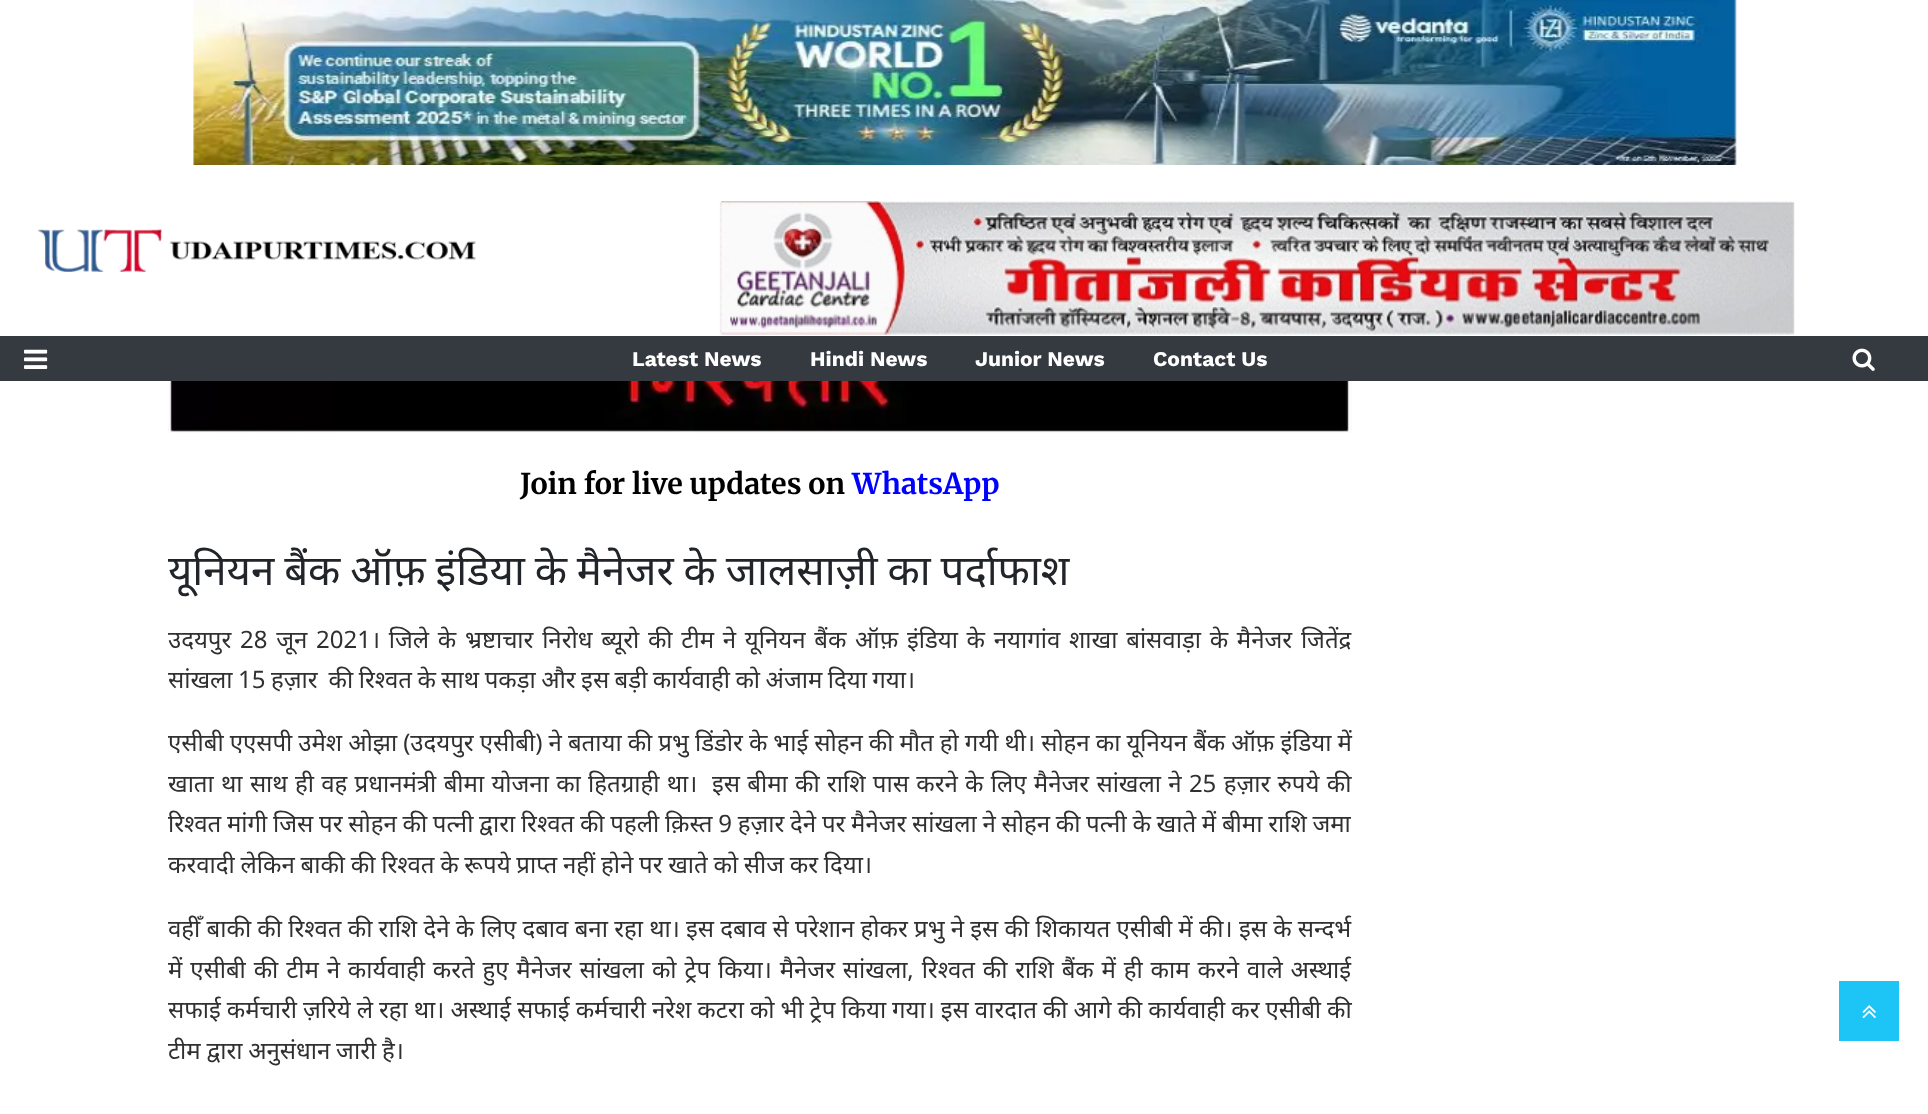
<svg xmlns="http://www.w3.org/2000/svg" width="1928" height="1114" viewBox="0 0 1928 1114">
  <rect width="100%" height="100%" fill="#fff"/>
  <image x="193" y="0" width="1544" height="165" href="img/1.png"/>
  <image x="38" y="229" width="438" height="43" href="img/2.png"/>
  <image x="719" y="201" width="1076" height="134" href="img/3.png"/>
  <path d="M0 336h1928v45H0z" fill="#343a40"/>
  <image x="24" y="349" width="24" height="20" href="img/4.png"/>
  <image x="1852" y="348" width="23" height="23" href="img/5.png"/>
  <image x="168" y="381" width="1184" height="52" href="img/6.png"/>
  <path d="M1839 981h60v60H1839z" fill="#1dc4f6"/>
  <image x="1862" y="1005" width="14" height="14" href="img/7.png"/>
  <g font-family="Work Sans" font-size="21" font-weight="bold" fill="#fff">
    <text x="632" y="366">Latest News</text>
    <text x="810" y="366">Hindi News</text>
    <text x="975" y="366">Junior News</text>
    <text x="1153" y="366">Contact Us</text>
  </g>
  <text x="520" y="494" font-family="Merriweather" font-size="28.75" font-weight="bold" fill="#000">Join for live updates on</text>
  <text x="852" y="494" font-family="Merriweather" font-size="28.75" font-weight="bold" fill="#00f">WhatsApp</text>
  <text x="168" y="585" word-spacing="-1" font-family="Noto Sans" font-size="42" fill="#212529">यूनियन बैंक ऑफ़ इंडिया के मैनेजर के जालसाज़ी का पर्दाफाश</text>
  <g font-family="Noto Sans" font-size="24" fill="#303030">
    <text x="168" y="648" word-spacing="2.5">उदयपुर 28 जून 2021। जिले के भ्रष्टाचार निरोध ब्यूरो की टीम ने यूनियन बैंक ऑफ़ इंडिया के नयागांव शाखा बांसवाड़ा के मैनेजर जितेंद्र</text>
    <text x="168" y="688" word-spacing="-0.75" xml:space="preserve">सांखला 15 हज़ार  की रिश्वत के साथ पकड़ा और इस बड़ी कार्यवाही को अंजाम दिया गया।</text>
    <text x="168" y="751" word-spacing="-0.2">एसीबी एएसपी उमेश ओझा (उदयपुर एसीबी) ने बताया की प्रभु डिंडोर के भाई सोहन की मौत हो गयी थी। सोहन का यूनियन बैंक ऑफ़ इंडिया में</text>
    <text x="168" y="792" word-spacing="1.05" xml:space="preserve">खाता था साथ ही वह प्रधानमंत्री बीमा योजना का हितग्राही था।  इस बीमा की राशि पास करने के लिए मैनेजर सांखला ने 25 हज़ार रुपये की</text>
    <text x="168" y="832" word-spacing="-0.5">रिश्वत मांगी जिस पर सोहन की पत्नी द्वारा रिश्वत की पहली क़िस्त 9 हज़ार देने पर मैनेजर सांखला ने सोहन की पत्नी के खाते में बीमा राशि जमा</text>
    <text x="168" y="873" word-spacing="-0.5">करवादी लेकिन बाकी की रिश्वत के रूपये प्राप्त नहीं होने पर खाते को सीज कर दिया।</text>
    <text x="168" y="937">वहीँ बाकी की रिश्वत की राशि देने के लिए दबाव बना रहा था। इस दबाव से परेशान होकर प्रभु ने इस की शिकायत एसीबी में की। इस के सन्दर्भ</text>
    <text x="168" y="978" word-spacing="1.6">में एसीबी की टीम ने कार्यवाही करते हुए मैनेजर सांखला को ट्रेप किया। मैनेजर सांखला, रिश्वत की राशि बैंक में ही काम करने वाले अस्थाई</text>
    <text x="168" y="1018" word-spacing="-0.25">सफाई कर्मचारी ज़रिये ले रहा था। अस्थाई सफाई कर्मचारी नरेश कटरा को भी ट्रेप किया गया। इस वारदात की आगे की कार्यवाही कर एसीबी की</text>
    <text x="168" y="1059" word-spacing="-0.5">टीम द्वारा अनुसंधान जारी है।</text>
  </g>
</svg>
